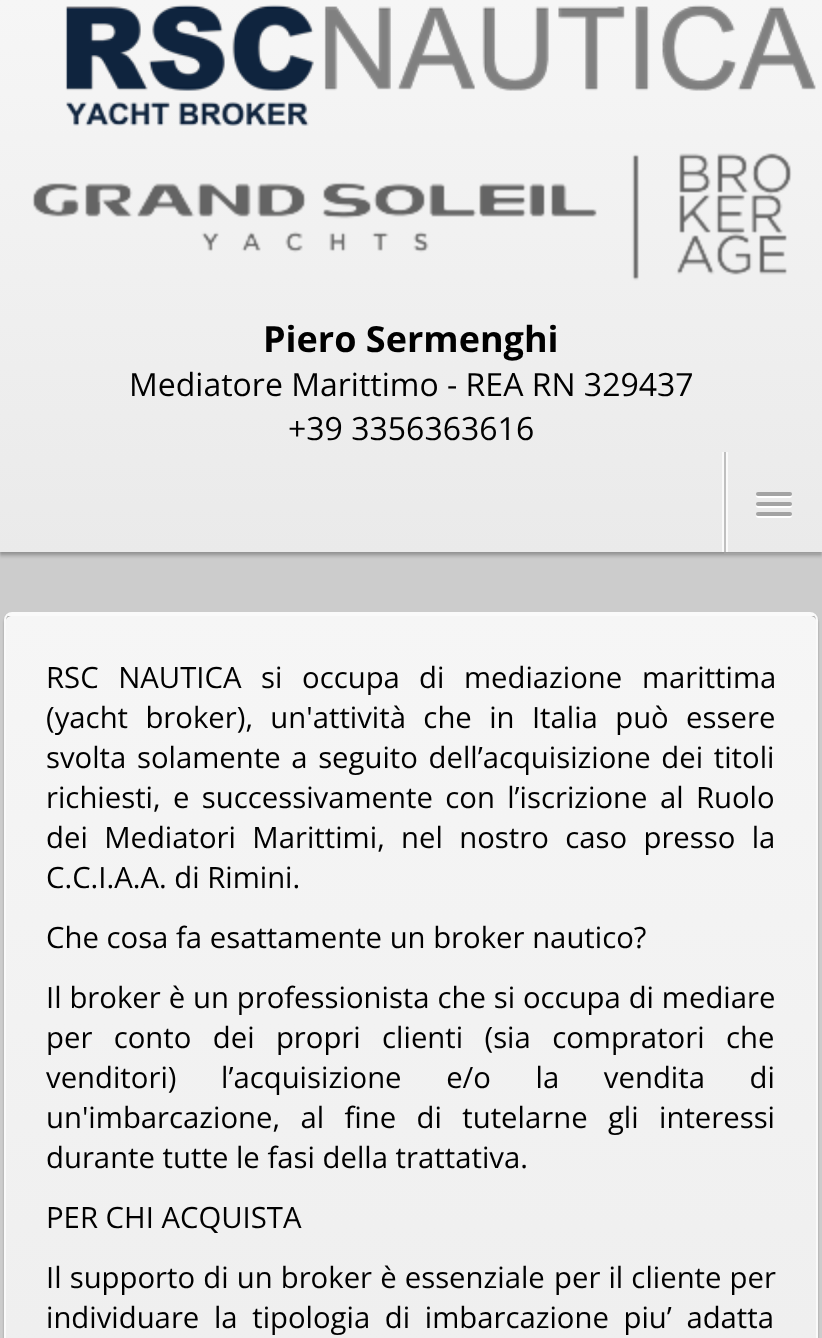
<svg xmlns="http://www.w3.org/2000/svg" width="822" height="1338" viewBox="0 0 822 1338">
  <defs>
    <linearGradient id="g1" gradientUnits="userSpaceOnUse" x1="411" y1="0" x2="411" y2="552"><stop offset="0" stop-color="#f6f6f6"/><stop offset="1" stop-color="#eaeaea"/></linearGradient>
    <linearGradient id="g2" gradientUnits="userSpaceOnUse" x1="411" y1="616" x2="411" y2="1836"><stop offset="0" stop-color="#f6f6f6"/><stop offset="1" stop-color="#eaeaea"/></linearGradient>
  </defs>
  <rect width="100%" height="100%" fill="#ccc"/>
  <path d="M0 6h822v552H0z" fill="#0000000d" filter="blur(1px)"/>
  <path d="M0 4h822v552H0z" fill="#0000001a" filter="blur(1px)"/>
  <path d="M0 2h822v552H0z" fill="#00000026" filter="blur(1px)"/>
  <path d="M0 0h822v552H0z" fill="url(#g1)"/>
  <image x="65" y="4" width="751" height="122" href="img/1.png"/>
  <image x="32" y="153" width="760" height="128" href="img/2.png"/>
  <path d="M724 552h98v2H724z" fill="#ffffff12"/>
  <path d="M724 452h2v100H724z" fill="#bfbfbf"/>
  <path d="M722 452h2v100H722z" fill="#fafafa"/>
  <path d="M726 452h2v100H726z" fill="#fafafa"/>
  <path d="M756.5 495C754 499 763 498 763.5 498H784.5C785 498 794 499 791.5 495C791.5 495.5 790.5 496 790 496H758C757.5 496 756.5 495.5 756.5 495Z" fill="#fff"/>
  <rect x="756" y="492" width="36" height="4" rx="2" fill="#a3a3a3"/>
  <path d="M756.5 505C754 509 763 508 763.5 508H784.5C785 508 794 509 791.5 505C791.5 505.5 790.5 506 790 506H758C757.5 506 756.5 505.5 756.5 505Z" fill="#fff"/>
  <rect x="756" y="502" width="36" height="4" rx="2" fill="#a3a3a3"/>
  <path d="M756.5 515C754 519 763 518 763.5 518H784.5C785 518 794 519 791.5 515C791.5 515.5 790.5 516 790 516H758C757.5 516 756.5 515.5 756.5 515Z" fill="#fff"/>
  <rect x="756" y="512" width="36" height="4" rx="2" fill="#a3a3a3"/>
  <rect x="4" y="616" width="814" height="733" rx="8" fill="#0000001a" filter="blur(1px)"/>
  <rect x="4" y="614" width="814" height="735" rx="8" fill="#00000026" filter="blur(1px)"/>
  <path d="M12 616H810C813 616 816 618 816 620V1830C816 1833 813 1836 810 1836H12C9 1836 6 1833 6 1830V620C6 618 9 616 12 616Z" fill="url(#g2)"/>
  <rect x="5" y="613" width="812" height="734" rx="7" fill="none" stroke="#fafafa" stroke-width="2"/>
  <path d="M8 614h806v2H8z" fill="#fafafa"/>
  <text x="263" y="352" font-family="Open Sans" font-size="36" font-weight="bold" fill="#000">Piero Sermenghi</text>
  <g font-family="Open Sans" font-size="32" fill="#000">
    <text x="129" y="396">Mediatore Marittimo - REA RN 329437</text>
    <text x="288" y="440">+39 3356363616</text>
  </g>
  <g font-family="Open Sans" font-size="29.3" fill="#000">
    <text x="46" y="688" word-spacing="12">RSC NAUTICA si occupa</text>
    <text x="419" y="688" word-spacing="12">di mediazione marittima</text>
    <text x="46" y="728" word-spacing="9.75">(yacht broker), un'attività che in Italia può essere</text>
    <text x="46" y="768" word-spacing="3">svolta solamente a seguito dell’acquisizione dei titoli</text>
    <text x="46" y="808" word-spacing="4.75">richiesti, e successivamente con l’iscrizione al Ruolo</text>
    <text x="46" y="848" word-spacing="8.75">dei Mediatori Marittimi, nel nostro caso presso la</text>
    <text x="46" y="888">C.C.I.A.A. di Rimini.</text>
    <text x="46" y="948">Che cosa fa esattamente un broker nautico?</text>
    <text x="46" y="1008" word-spacing="0.25">Il broker è un professionista che si occupa di mediare</text>
    <text x="46" y="1048" word-spacing="13.75">per conto dei propri clienti (sia compratori che</text>
    <text x="46" y="1088" word-spacing="37">venditori) l’acquisizione e/o la vendita di</text>
    <text x="46" y="1128" word-spacing="12.75">un'imbarcazione, al fine di tutelarne gli interessi</text>
    <text x="46" y="1168">durante tutte le fasi della trattativa.</text>
    <text x="46" y="1228">PER CHI ACQUISTA</text>
    <text x="46" y="1288" word-spacing="0.5">Il supporto di un broker è essenziale</text>
    <text x="554" y="1288" word-spacing="0.5">per il cliente per</text>
    <text x="46" y="1328" word-spacing="7">individuare la tipologia di imbarcazione piu’ adatta</text>
  </g>
</svg>
